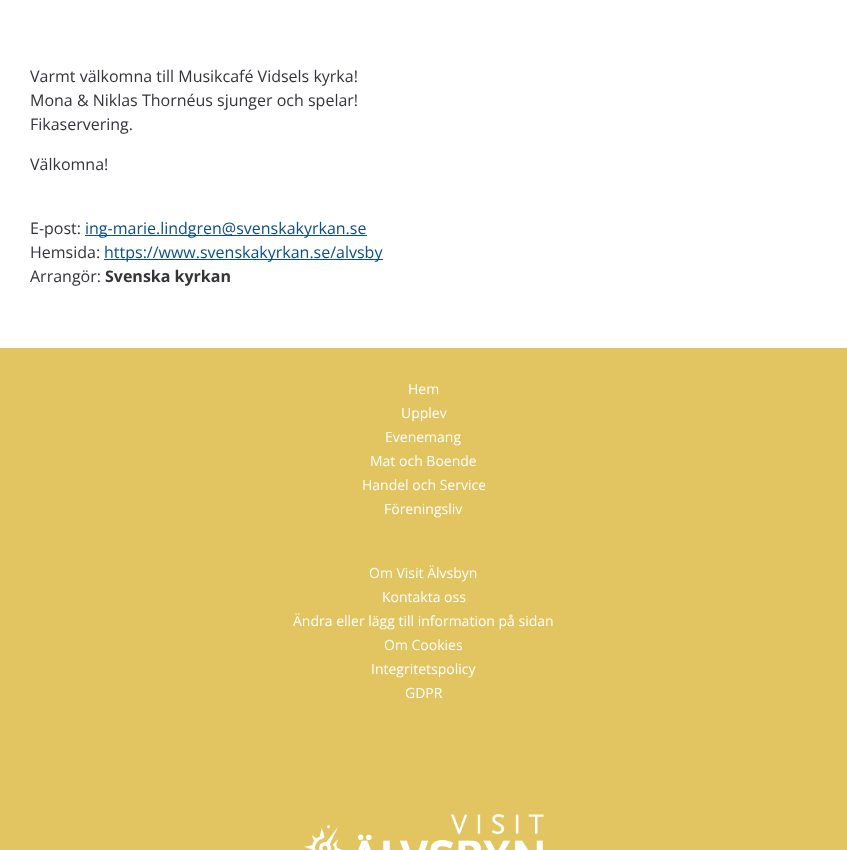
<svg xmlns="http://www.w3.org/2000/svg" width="847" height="850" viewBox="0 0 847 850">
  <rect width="100%" height="100%" fill="#fff"/>
  <path d="M85 235h282v1H85z" fill="#0b4d93"/>
  <path d="M104 259h279v1H104z" fill="#0b4d93"/>
  <path d="M0 348h847v502H0z" fill="#e2c560"/>
  <image x="304" y="814" width="240" height="36" href="img/1.png"/>
  <g font-family="Open Sans" font-size="16" fill="#35343a">
    <text x="30" y="82">Varmt välkomna till Musikcafé Vidsels kyrka!</text>
    <text x="30" y="106">Mona &amp; Niklas Thornéus sjunger och spelar!</text>
    <text x="30" y="130">Fikaservering.</text>
    <text x="30" y="170">Välkomna!</text>
    <text x="30" y="234">E-post:</text>
  </g>
  <text x="85" y="234" font-family="Open Sans" font-size="16" fill="#0b4d93">ing-marie.lindgren@svenskakyrkan.se</text>
  <text x="30" y="258" font-family="Open Sans" font-size="16" fill="#35343a">Hemsida:</text>
  <text x="104" y="258" font-family="Open Sans" font-size="16" fill="#0b4d93">https://www.svenskakyrkan.se/alvsby</text>
  <text x="30" y="282" font-family="Open Sans" font-size="16" fill="#35343a">Arrangör:</text>
  <text x="105" y="282" font-family="Open Sans" font-size="16" font-weight="bold" fill="#35343a">Svenska kyrkan</text>
  <g font-family="Open Sans" font-size="14" fill="#fff">
    <text x="408" y="394">Hem</text>
    <text x="401" y="418">Upplev</text>
    <text x="385" y="442">Evenemang</text>
    <text x="370" y="466">Mat och Boende</text>
    <text x="362" y="490">Handel och Service</text>
    <text x="384" y="514">Föreningsliv</text>
    <text x="369" y="578">Om Visit Älvsbyn</text>
    <text x="382" y="602">Kontakta oss</text>
    <text x="293" y="626">Ändra eller lägg till information på sidan</text>
    <text x="384" y="650">Om Cookies</text>
    <text x="371" y="674">Integritetspolicy</text>
    <text x="405" y="698">GDPR</text>
  </g>
</svg>
